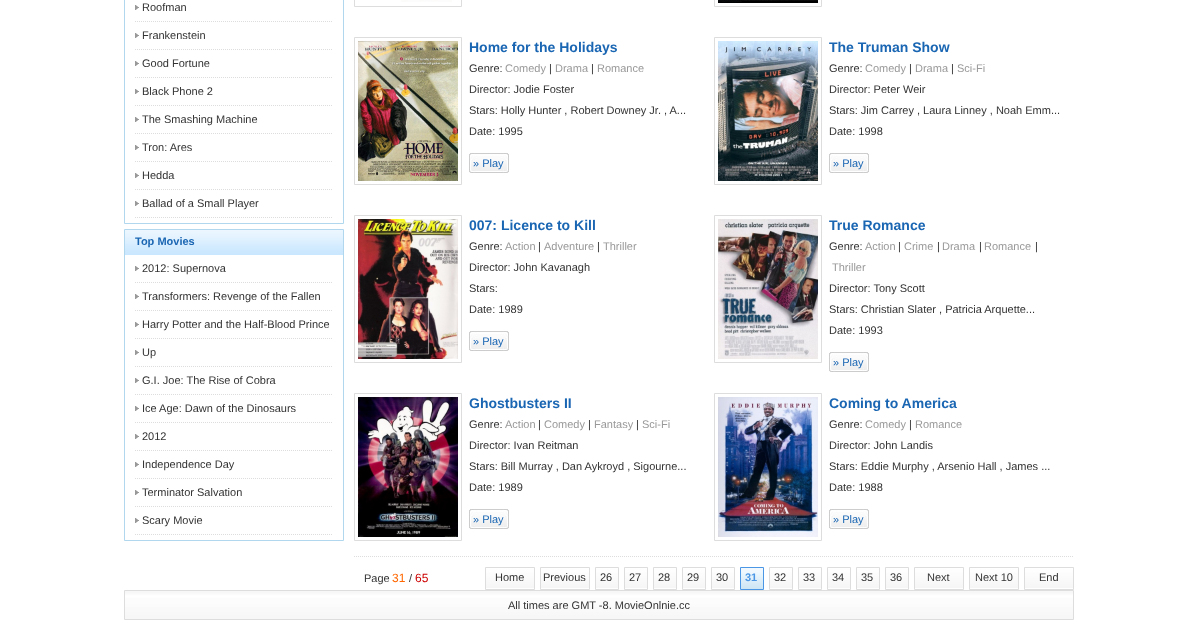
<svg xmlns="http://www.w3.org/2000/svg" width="1197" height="624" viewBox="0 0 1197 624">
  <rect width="100%" height="100%" fill="#fff"/>
  <path d="M124.5 -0.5h219v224H124.5z" fill="none" stroke="#b1d7ee"/>
  <image x="135" y="5" width="4" height="5" href="img/1.png"/>
  <path d="M135 21.5H333" fill="none" stroke="#ddd" stroke-dasharray="1 1"/>
  <image x="135" y="33" width="4" height="5" href="img/1.png"/>
  <path d="M135 49.5H333" fill="none" stroke="#ddd" stroke-dasharray="1 1"/>
  <image x="135" y="61" width="4" height="5" href="img/1.png"/>
  <path d="M135 77.5H333" fill="none" stroke="#ddd" stroke-dasharray="1 1"/>
  <image x="135" y="89" width="4" height="5" href="img/1.png"/>
  <path d="M135 105.5H333" fill="none" stroke="#ddd" stroke-dasharray="1 1"/>
  <image x="135" y="117" width="4" height="5" href="img/1.png"/>
  <path d="M135 133.5H333" fill="none" stroke="#ddd" stroke-dasharray="1 1"/>
  <image x="135" y="145" width="4" height="5" href="img/1.png"/>
  <path d="M135 161.5H333" fill="none" stroke="#ddd" stroke-dasharray="1 1"/>
  <image x="135" y="173" width="4" height="5" href="img/1.png"/>
  <path d="M135 189.5H333" fill="none" stroke="#ddd" stroke-dasharray="1 1"/>
  <image x="135" y="201" width="4" height="5" href="img/1.png"/>
  <path d="M135 217.5H333" fill="none" stroke="#ddd" stroke-dasharray="1 1"/>
  <path d="M124.5 229.5h219v311H124.5z" fill="none" stroke="#b1d7ee"/>
  <image x="125" y="230" width="218" height="25" href="img/2.png"/>
  <image x="135" y="266" width="4" height="5" href="img/1.png"/>
  <path d="M135 282.5H333" fill="none" stroke="#ddd" stroke-dasharray="1 1"/>
  <image x="135" y="294" width="4" height="5" href="img/1.png"/>
  <path d="M135 310.5H333" fill="none" stroke="#ddd" stroke-dasharray="1 1"/>
  <image x="135" y="322" width="4" height="5" href="img/1.png"/>
  <path d="M135 338.5H333" fill="none" stroke="#ddd" stroke-dasharray="1 1"/>
  <image x="135" y="350" width="4" height="5" href="img/1.png"/>
  <path d="M135 366.5H333" fill="none" stroke="#ddd" stroke-dasharray="1 1"/>
  <image x="135" y="378" width="4" height="5" href="img/1.png"/>
  <path d="M135 394.5H333" fill="none" stroke="#ddd" stroke-dasharray="1 1"/>
  <image x="135" y="406" width="4" height="5" href="img/1.png"/>
  <path d="M135 422.5H333" fill="none" stroke="#ddd" stroke-dasharray="1 1"/>
  <image x="135" y="434" width="4" height="5" href="img/1.png"/>
  <path d="M135 450.5H333" fill="none" stroke="#ddd" stroke-dasharray="1 1"/>
  <image x="135" y="462" width="4" height="5" href="img/1.png"/>
  <path d="M135 478.5H333" fill="none" stroke="#ddd" stroke-dasharray="1 1"/>
  <image x="135" y="490" width="4" height="5" href="img/1.png"/>
  <path d="M135 506.5H333" fill="none" stroke="#ddd" stroke-dasharray="1 1"/>
  <image x="135" y="518" width="4" height="5" href="img/1.png"/>
  <path d="M135 534.5H333" fill="none" stroke="#ddd" stroke-dasharray="1 1"/>
  <path d="M354 556.5H1074" fill="none" stroke="#ddd" stroke-dasharray="1 1"/>
  <path d="M354.5 -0.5h107v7H354.5z" fill="none" stroke="#ddd"/>
  <image x="401" y="0" width="51" height="2" href="img/3.png"/>
  <path d="M714.5 -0.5h107v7H714.5z" fill="none" stroke="#ddd"/>
  <image x="718" y="0" width="100" height="3" href="img/4.png"/>
  <path d="M354.5 37.5h107v147H354.5z" fill="none" stroke="#ddd"/>
  <image x="358" y="41" width="100" height="140" href="img/5.png"/>
  <image x="469" y="153" width="40" height="20" href="img/6.png"/>
  <path d="M714.5 37.5h107v147H714.5z" fill="none" stroke="#ddd"/>
  <image x="718" y="41" width="100" height="140" href="img/7.png"/>
  <image x="829" y="153" width="40" height="20" href="img/6.png"/>
  <path d="M354.5 215.5h107v147H354.5z" fill="none" stroke="#ddd"/>
  <image x="358" y="219" width="100" height="140" href="img/8.png"/>
  <image x="469" y="331" width="40" height="20" href="img/6.png"/>
  <path d="M714.5 215.5h107v147H714.5z" fill="none" stroke="#ddd"/>
  <image x="718" y="219" width="100" height="140" href="img/9.png"/>
  <image x="829" y="352" width="40" height="20" href="img/6.png"/>
  <path d="M354.5 393.5h107v147H354.5z" fill="none" stroke="#ddd"/>
  <image x="358" y="397" width="100" height="140" href="img/10.png"/>
  <image x="469" y="509" width="40" height="20" href="img/6.png"/>
  <path d="M714.5 393.5h107v147H714.5z" fill="none" stroke="#ddd"/>
  <image x="718" y="397" width="100" height="140" href="img/11.png"/>
  <image x="829" y="509" width="40" height="20" href="img/6.png"/>
  <image x="486" y="568" width="48" height="20" href="img/12.png"/>
  <path d="M485.5 567.5h49v22H485.5z" fill="none" stroke="#ddd"/>
  <image x="541" y="568" width="48" height="20" href="img/12.png"/>
  <path d="M540.5 567.5h49v22H540.5z" fill="none" stroke="#ddd"/>
  <image x="596" y="568" width="22" height="20" href="img/13.png"/>
  <path d="M595.5 567.5h23v22H595.5z" fill="none" stroke="#ddd"/>
  <image x="625" y="568" width="22" height="20" href="img/13.png"/>
  <path d="M624.5 567.5h23v22H624.5z" fill="none" stroke="#ddd"/>
  <image x="654" y="568" width="22" height="20" href="img/13.png"/>
  <path d="M653.5 567.5h23v22H653.5z" fill="none" stroke="#ddd"/>
  <image x="683" y="568" width="22" height="20" href="img/13.png"/>
  <path d="M682.5 567.5h23v22H682.5z" fill="none" stroke="#ddd"/>
  <image x="712" y="568" width="22" height="20" href="img/13.png"/>
  <path d="M711.5 567.5h23v22H711.5z" fill="none" stroke="#ddd"/>
  <image x="741" y="568" width="22" height="21" href="img/14.png"/>
  <path d="M740.5 567.5h23v22H740.5z" fill="none" stroke="#4b97e5"/>
  <image x="770" y="568" width="22" height="20" href="img/13.png"/>
  <path d="M769.5 567.5h23v22H769.5z" fill="none" stroke="#ddd"/>
  <image x="799" y="568" width="22" height="20" href="img/13.png"/>
  <path d="M798.5 567.5h23v22H798.5z" fill="none" stroke="#ddd"/>
  <image x="828" y="568" width="22" height="20" href="img/13.png"/>
  <path d="M827.5 567.5h23v22H827.5z" fill="none" stroke="#ddd"/>
  <image x="857" y="568" width="22" height="20" href="img/13.png"/>
  <path d="M856.5 567.5h23v22H856.5z" fill="none" stroke="#ddd"/>
  <image x="886" y="568" width="22" height="20" href="img/13.png"/>
  <path d="M885.5 567.5h23v22H885.5z" fill="none" stroke="#ddd"/>
  <image x="915" y="568" width="48" height="20" href="img/12.png"/>
  <path d="M914.5 567.5h49v22H914.5z" fill="none" stroke="#ddd"/>
  <image x="970" y="568" width="48" height="20" href="img/12.png"/>
  <path d="M969.5 567.5h49v22H969.5z" fill="none" stroke="#ddd"/>
  <image x="1025" y="568" width="48" height="20" href="img/12.png"/>
  <path d="M1024.5 567.5h49v22H1024.5z" fill="none" stroke="#ddd"/>
  <image x="125" y="591" width="948" height="28" href="img/15.png"/>
  <path d="M124.5 590.5h949v29H124.5z" fill="none" stroke="#ddd"/>
  <g font-family="Liberation Sans" font-size="11" fill="#333">
    <text x="142" y="11">Roofman</text>
    <text x="142" y="39">Frankenstein</text>
    <text x="142" y="67">Good Fortune</text>
    <text x="142" y="95">Black Phone 2</text>
    <text x="142" y="123">The Smashing Machine</text>
    <text x="142" y="151">Tron: Ares</text>
    <text x="142" y="179">Hedda</text>
    <text x="142" y="207">Ballad of a Small Player</text>
  </g>
  <text x="135" y="245" font-family="Liberation Sans" font-size="11" font-weight="bold" fill="#1a66b3">Top Movies</text>
  <g font-family="Liberation Sans" font-size="11" fill="#333">
    <text x="142" y="272">2012: Supernova</text>
    <text x="142" y="300">Transformers: Revenge of the Fallen</text>
    <text x="142" y="328">Harry Potter and the Half-Blood Prince</text>
    <text x="142" y="356">Up</text>
    <text x="142" y="384">G.I. Joe: The Rise of Cobra</text>
    <text x="142" y="412">Ice Age: Dawn of the Dinosaurs</text>
    <text x="142" y="440">2012</text>
    <text x="142" y="468">Independence Day</text>
    <text x="142" y="496">Terminator Salvation</text>
    <text x="142" y="524">Scary Movie</text>
  </g>
  <text x="469" y="52" font-family="Liberation Sans" font-size="14" font-weight="bold" fill="#1a66b3">Home for the Holidays</text>
  <text x="469" y="72" font-family="Liberation Sans" font-size="11" fill="#333">Genre:</text>
  <text x="505" y="72" font-family="Liberation Sans" font-size="11" fill="#999">Comedy</text>
  <text x="549" y="72" font-family="Liberation Sans" font-size="11" fill="#333">|</text>
  <text x="555" y="72" font-family="Liberation Sans" font-size="11" fill="#999">Drama</text>
  <text x="591" y="72" font-family="Liberation Sans" font-size="11" fill="#333">|</text>
  <text x="597" y="72" font-family="Liberation Sans" font-size="11" fill="#999">Romance</text>
  <g font-family="Liberation Sans" font-size="11" fill="#333">
    <text x="469" y="93">Director: Jodie Foster</text>
    <text x="469" y="114">Stars: Holly Hunter , Robert Downey Jr. , A...</text>
    <text x="469" y="135">Date: 1995</text>
  </g>
  <text x="473" y="167" font-family="Liberation Sans" font-size="11" fill="#1a66b3">» Play</text>
  <text x="829" y="52" font-family="Liberation Sans" font-size="14" font-weight="bold" fill="#1a66b3">The Truman Show</text>
  <text x="829" y="72" font-family="Liberation Sans" font-size="11" fill="#333">Genre:</text>
  <text x="865" y="72" font-family="Liberation Sans" font-size="11" fill="#999">Comedy</text>
  <text x="909" y="72" font-family="Liberation Sans" font-size="11" fill="#333">|</text>
  <text x="915" y="72" font-family="Liberation Sans" font-size="11" fill="#999">Drama</text>
  <text x="951" y="72" font-family="Liberation Sans" font-size="11" fill="#333">|</text>
  <text x="957" y="72" font-family="Liberation Sans" font-size="11" fill="#999">Sci-Fi</text>
  <g font-family="Liberation Sans" font-size="11" fill="#333">
    <text x="829" y="93">Director: Peter Weir</text>
    <text x="829" y="114">Stars: Jim Carrey , Laura Linney , Noah Emm...</text>
    <text x="829" y="135">Date: 1998</text>
  </g>
  <text x="833" y="167" font-family="Liberation Sans" font-size="11" fill="#1a66b3">» Play</text>
  <text x="469" y="230" font-family="Liberation Sans" font-size="14" font-weight="bold" fill="#1a66b3">007: Licence to Kill</text>
  <text x="469" y="250" font-family="Liberation Sans" font-size="11" fill="#333">Genre:</text>
  <text x="505" y="250" font-family="Liberation Sans" font-size="11" fill="#999">Action</text>
  <text x="538" y="250" font-family="Liberation Sans" font-size="11" fill="#333">|</text>
  <text x="544" y="250" font-family="Liberation Sans" font-size="11" fill="#999">Adventure</text>
  <text x="597" y="250" font-family="Liberation Sans" font-size="11" fill="#333">|</text>
  <text x="603" y="250" font-family="Liberation Sans" font-size="11" fill="#999">Thriller</text>
  <g font-family="Liberation Sans" font-size="11" fill="#333">
    <text x="469" y="271">Director: John Kavanagh</text>
    <text x="469" y="292">Stars:</text>
    <text x="469" y="313">Date: 1989</text>
  </g>
  <text x="473" y="345" font-family="Liberation Sans" font-size="11" fill="#1a66b3">» Play</text>
  <text x="829" y="230" font-family="Liberation Sans" font-size="14" font-weight="bold" fill="#1a66b3">True Romance</text>
  <text x="829" y="250" font-family="Liberation Sans" font-size="11" fill="#333">Genre:</text>
  <text x="865" y="250" font-family="Liberation Sans" font-size="11" fill="#999">Action</text>
  <text x="898" y="250" font-family="Liberation Sans" font-size="11" fill="#333">|</text>
  <text x="904" y="250" font-family="Liberation Sans" font-size="11" fill="#999">Crime</text>
  <text x="937" y="250" font-family="Liberation Sans" font-size="11" fill="#333">|</text>
  <text x="942" y="250" font-family="Liberation Sans" font-size="11" fill="#999">Drama</text>
  <text x="979" y="250" font-family="Liberation Sans" font-size="11" fill="#333">|</text>
  <text x="984" y="250" font-family="Liberation Sans" font-size="11" fill="#999">Romance</text>
  <text x="1035" y="250" font-family="Liberation Sans" font-size="11" fill="#333">|</text>
  <text x="832" y="271" font-family="Liberation Sans" font-size="11" fill="#999">Thriller</text>
  <g font-family="Liberation Sans" font-size="11" fill="#333">
    <text x="829" y="292">Director: Tony Scott</text>
    <text x="829" y="313">Stars: Christian Slater , Patricia Arquette...</text>
    <text x="829" y="334">Date: 1993</text>
  </g>
  <text x="833" y="366" font-family="Liberation Sans" font-size="11" fill="#1a66b3">» Play</text>
  <text x="469" y="408" font-family="Liberation Sans" font-size="14" font-weight="bold" fill="#1a66b3">Ghostbusters II</text>
  <text x="469" y="428" font-family="Liberation Sans" font-size="11" fill="#333">Genre:</text>
  <text x="505" y="428" font-family="Liberation Sans" font-size="11" fill="#999">Action</text>
  <text x="538" y="428" font-family="Liberation Sans" font-size="11" fill="#333">|</text>
  <text x="544" y="428" font-family="Liberation Sans" font-size="11" fill="#999">Comedy</text>
  <text x="588" y="428" font-family="Liberation Sans" font-size="11" fill="#333">|</text>
  <text x="594" y="428" font-family="Liberation Sans" font-size="11" fill="#999">Fantasy</text>
  <text x="636" y="428" font-family="Liberation Sans" font-size="11" fill="#333">|</text>
  <text x="642" y="428" font-family="Liberation Sans" font-size="11" fill="#999">Sci-Fi</text>
  <g font-family="Liberation Sans" font-size="11" fill="#333">
    <text x="469" y="449">Director: Ivan Reitman</text>
    <text x="469" y="470">Stars: Bill Murray , Dan Aykroyd , Sigourne...</text>
    <text x="469" y="491">Date: 1989</text>
  </g>
  <text x="473" y="523" font-family="Liberation Sans" font-size="11" fill="#1a66b3">» Play</text>
  <text x="829" y="408" font-family="Liberation Sans" font-size="14" font-weight="bold" fill="#1a66b3">Coming to America</text>
  <text x="829" y="428" font-family="Liberation Sans" font-size="11" fill="#333">Genre:</text>
  <text x="865" y="428" font-family="Liberation Sans" font-size="11" fill="#999">Comedy</text>
  <text x="909" y="428" font-family="Liberation Sans" font-size="11" fill="#333">|</text>
  <text x="915" y="428" font-family="Liberation Sans" font-size="11" fill="#999">Romance</text>
  <g font-family="Liberation Sans" font-size="11" fill="#333">
    <text x="829" y="449">Director: John Landis</text>
    <text x="829" y="470">Stars: Eddie Murphy , Arsenio Hall , James ...</text>
    <text x="829" y="491">Date: 1988</text>
  </g>
  <text x="833" y="523" font-family="Liberation Sans" font-size="11" fill="#1a66b3">» Play</text>
  <text x="364" y="582" font-family="Liberation Sans" font-size="11" fill="#333">Page</text>
  <text x="392" y="582" font-family="Liberation Sans" font-size="12" fill="#f60">31</text>
  <text x="409" y="582" font-family="Liberation Sans" font-size="11" fill="#333">/</text>
  <text x="415" y="582" font-family="Liberation Sans" font-size="12" fill="#cd0100">65</text>
  <g font-family="Liberation Sans" font-size="11" fill="#333">
    <text x="495" y="581">Home</text>
    <text x="543" y="581">Previous</text>
    <text x="600" y="581">26</text>
    <text x="629" y="581">27</text>
    <text x="658" y="581">28</text>
    <text x="687" y="581">29</text>
    <text x="716" y="581">30</text>
  </g>
  <text x="745" y="581" font-family="Liberation Sans" font-size="11" font-weight="bold" fill="#4b97e5">31</text>
  <g font-family="Liberation Sans" font-size="11" fill="#333">
    <text x="774" y="581">32</text>
    <text x="803" y="581">33</text>
    <text x="832" y="581">34</text>
    <text x="861" y="581">35</text>
    <text x="890" y="581">36</text>
    <text x="927" y="581">Next</text>
    <text x="975" y="581">Next 10</text>
    <text x="1039" y="581">End</text>
    <text x="508" y="609">All times are GMT -8. MovieOnlnie.cc</text>
  </g>
</svg>
